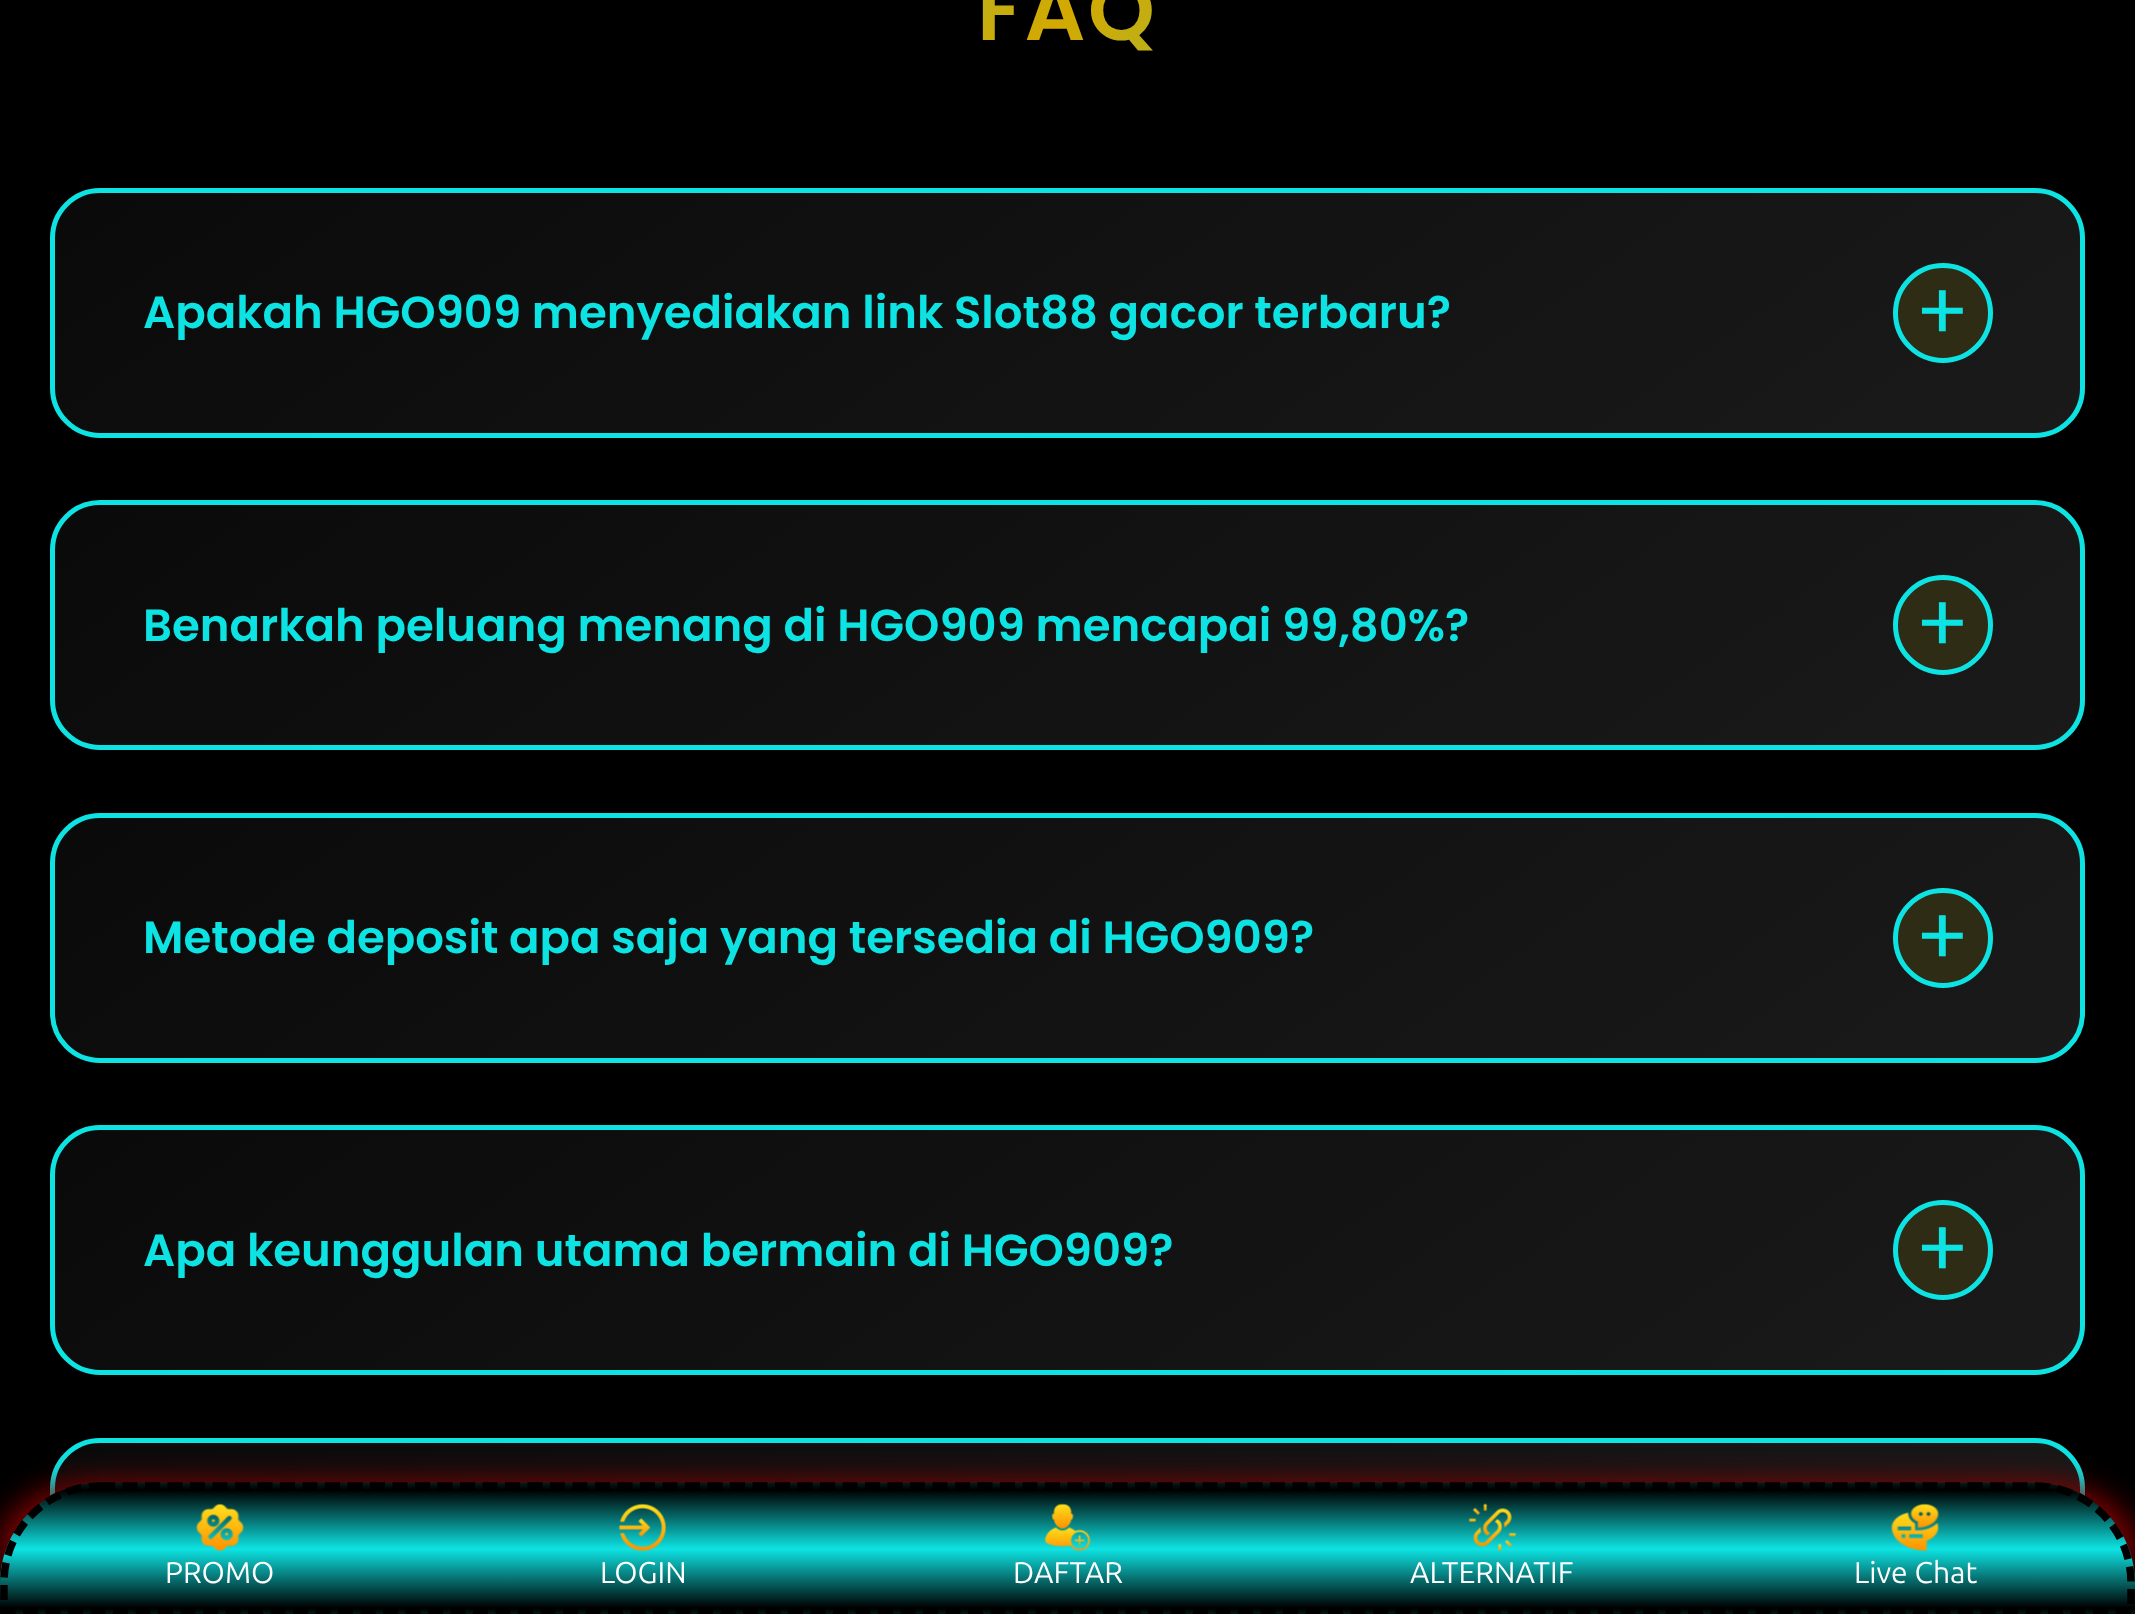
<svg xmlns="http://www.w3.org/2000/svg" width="2135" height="1614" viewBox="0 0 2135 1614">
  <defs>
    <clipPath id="clip1"><rect x="50" y="188" width="2035" height="250" rx="50"/></clipPath>
    <linearGradient id="g1" gradientUnits="userSpaceOnUse" x1="678" y1="-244" x2="1457" y2="869"><stop offset="0" stop-color="#0a0a0a"/><stop offset="1" stop-color="#1a1a1a"/></linearGradient>
    <clipPath id="clip2"><rect x="50" y="500" width="2035" height="250" rx="50"/></clipPath>
    <linearGradient id="g2" gradientUnits="userSpaceOnUse" x1="678" y1="69" x2="1457" y2="1181"><stop offset="0" stop-color="#0a0a0a"/><stop offset="1" stop-color="#1a1a1a"/></linearGradient>
    <clipPath id="clip3"><rect x="50" y="813" width="2035" height="250" rx="50"/></clipPath>
    <linearGradient id="g3" gradientUnits="userSpaceOnUse" x1="678" y1="381" x2="1457" y2="1494"><stop offset="0" stop-color="#0a0a0a"/><stop offset="1" stop-color="#1a1a1a"/></linearGradient>
    <clipPath id="clip4"><rect x="50" y="1125" width="2035" height="250" rx="50"/></clipPath>
    <linearGradient id="g4" gradientUnits="userSpaceOnUse" x1="678" y1="694" x2="1457" y2="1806"><stop offset="0" stop-color="#0a0a0a"/><stop offset="1" stop-color="#1a1a1a"/></linearGradient>
    <clipPath id="clip5"><rect x="50" y="1438" width="2035" height="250" rx="50"/></clipPath>
    <linearGradient id="g5" gradientUnits="userSpaceOnUse" x1="678" y1="1006" x2="1457" y2="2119"><stop offset="0" stop-color="#0a0a0a"/><stop offset="1" stop-color="#1a1a1a"/></linearGradient>
    <clipPath id="clip6"><path d="M100 1483H2035C2090 1483 2135 1528 2135 1583V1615H0V1583C0 1528 45 1483 100 1483Z"/></clipPath>
    <linearGradient id="g6" gradientUnits="userSpaceOnUse" x1="1068" y1="1373" x2="1068" y2="1490"><stop offset="0" stop-color="#000"/><stop offset="0.5" stop-color="#0ee3e3"/><stop offset="1" stop-color="#000"/></linearGradient>
    <linearGradient id="g7" gradientUnits="userSpaceOnUse" x1="1068" y1="1490" x2="1068" y2="1608"><stop offset="0" stop-color="#000"/><stop offset="0.5" stop-color="#0ee3e3"/><stop offset="1" stop-color="#000"/></linearGradient>
    <linearGradient id="g8" gradientUnits="userSpaceOnUse" x1="533" y1="-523" x2="1602" y2="545"><stop offset="0" stop-color="#0ee3e3"/><stop offset="0.5" stop-color="#d3a900"/><stop offset="1" stop-color="#0ee3e3"/></linearGradient>
    <linearGradient id="g9" gradientUnits="userSpaceOnUse" x1="1068" y1="1608" x2="1068" y2="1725"><stop offset="0" stop-color="#000"/><stop offset="0.5" stop-color="#0ee3e3"/><stop offset="1" stop-color="#000"/></linearGradient>
  </defs>
  <rect width="100%" height="100%" fill="#000"/>
  <g clip-path="url(#clip1)">
    <path d="M55 193h2025v240H55z" fill="url(#g1)"/>
  </g>
  <rect x="52.5" y="190.5" width="2030" height="245" rx="47.5" fill="none" stroke="#0ee3e3" stroke-width="5"/>
  <circle cx="1943" cy="313" r="47.5" fill="#2f2c16" stroke="#0ee3e3" stroke-width="5"/>
  <g clip-path="url(#clip2)">
    <path d="M55 505h2025v240H55z" fill="url(#g2)"/>
  </g>
  <rect x="52.5" y="502.5" width="2030" height="245" rx="47.5" fill="none" stroke="#0ee3e3" stroke-width="5"/>
  <circle cx="1943" cy="625" r="47.5" fill="#2f2c16" stroke="#0ee3e3" stroke-width="5"/>
  <g clip-path="url(#clip3)">
    <path d="M55 818h2025v240H55z" fill="url(#g3)"/>
  </g>
  <rect x="52.5" y="815.5" width="2030" height="245" rx="47.5" fill="none" stroke="#0ee3e3" stroke-width="5"/>
  <circle cx="1943" cy="938" r="47.5" fill="#2f2c16" stroke="#0ee3e3" stroke-width="5"/>
  <g clip-path="url(#clip4)">
    <path d="M55 1130h2025v240H55z" fill="url(#g4)"/>
  </g>
  <rect x="52.5" y="1127.5" width="2030" height="245" rx="47.5" fill="none" stroke="#0ee3e3" stroke-width="5"/>
  <circle cx="1943" cy="1250" r="47.5" fill="#2f2c16" stroke="#0ee3e3" stroke-width="5"/>
  <g clip-path="url(#clip5)">
    <path d="M55 1443h2025v51H55z" fill="url(#g5)"/>
  </g>
  <rect x="52.5" y="1440.5" width="2030" height="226" rx="47.5" fill="none" stroke="#0ee3e3" stroke-width="5"/>
  <rect y="1483" width="2135" height="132" rx="100" fill="#8b0000" filter="blur(15px)"/>
  <g clip-path="url(#clip6)">
    <path d="M63 1483h2009v7H63z" fill="url(#g6)"/>
    <path d="M0 1490h2135v118H0z" fill="url(#g7)"/>
  </g>
  <path d="M0 1608h2135v6H0z" fill="url(#g9)"/>
  <path d="M100 1486H2035C2088 1486 2131 1529.5 2131 1582.5V1611H4V1582.5C4 1529.5 47 1486 100 1486Z" fill="none" stroke="#000" stroke-width="7.5" stroke-dasharray="15 7.5"/>
  <image x="195" y="1503" width="50" height="49" href="img/1.png"/>
  <image x="618" y="1503" width="49" height="49" href="img/2.png"/>
  <image x="1044" y="1503" width="47" height="49" href="img/3.png"/>
  <image x="1468" y="1503" width="49" height="49" href="img/4.png"/>
  <image x="1890" y="1503" width="50" height="49" href="img/5.png"/>
  <text x="977" y="40" font-family="Poppins" font-size="85" font-weight="600" letter-spacing="2.5" fill="url(#g8)">FAQ</text>
  <text x="143" y="328" font-family="Poppins" font-size="45" font-weight="600" fill="#0ee3e3">Apakah HGO909 menyediakan link Slot88 gacor terbaru?</text>
  <text x="1915" y="340" font-family="Poppins" font-size="80" fill="#0ee3e3">+</text>
  <text x="143" y="641" font-family="Poppins" font-size="45" font-weight="600" fill="#0ee3e3">Benarkah peluang menang di HGO909 mencapai 99,80%?</text>
  <text x="1915" y="652" font-family="Poppins" font-size="80" fill="#0ee3e3">+</text>
  <text x="143" y="953" font-family="Poppins" font-size="45" font-weight="600" fill="#0ee3e3">Metode deposit apa saja yang tersedia di HGO909?</text>
  <text x="1915" y="965" font-family="Poppins" font-size="80" fill="#0ee3e3">+</text>
  <text x="143" y="1266" font-family="Poppins" font-size="45" font-weight="600" fill="#0ee3e3">Apa keunggulan utama bermain di HGO909?</text>
  <text x="1915" y="1277" font-family="Poppins" font-size="80" fill="#0ee3e3">+</text>
  <g font-family="Ubuntu" font-size="30" fill="#fff">
    <text x="165" y="1583">PROMO</text>
    <text x="600" y="1583">LOGIN</text>
    <text x="1013" y="1583">DAFTAR</text>
    <text x="1410" y="1583">ALTERNATIF</text>
    <text x="1854" y="1583">Live Chat</text>
  </g>
</svg>
